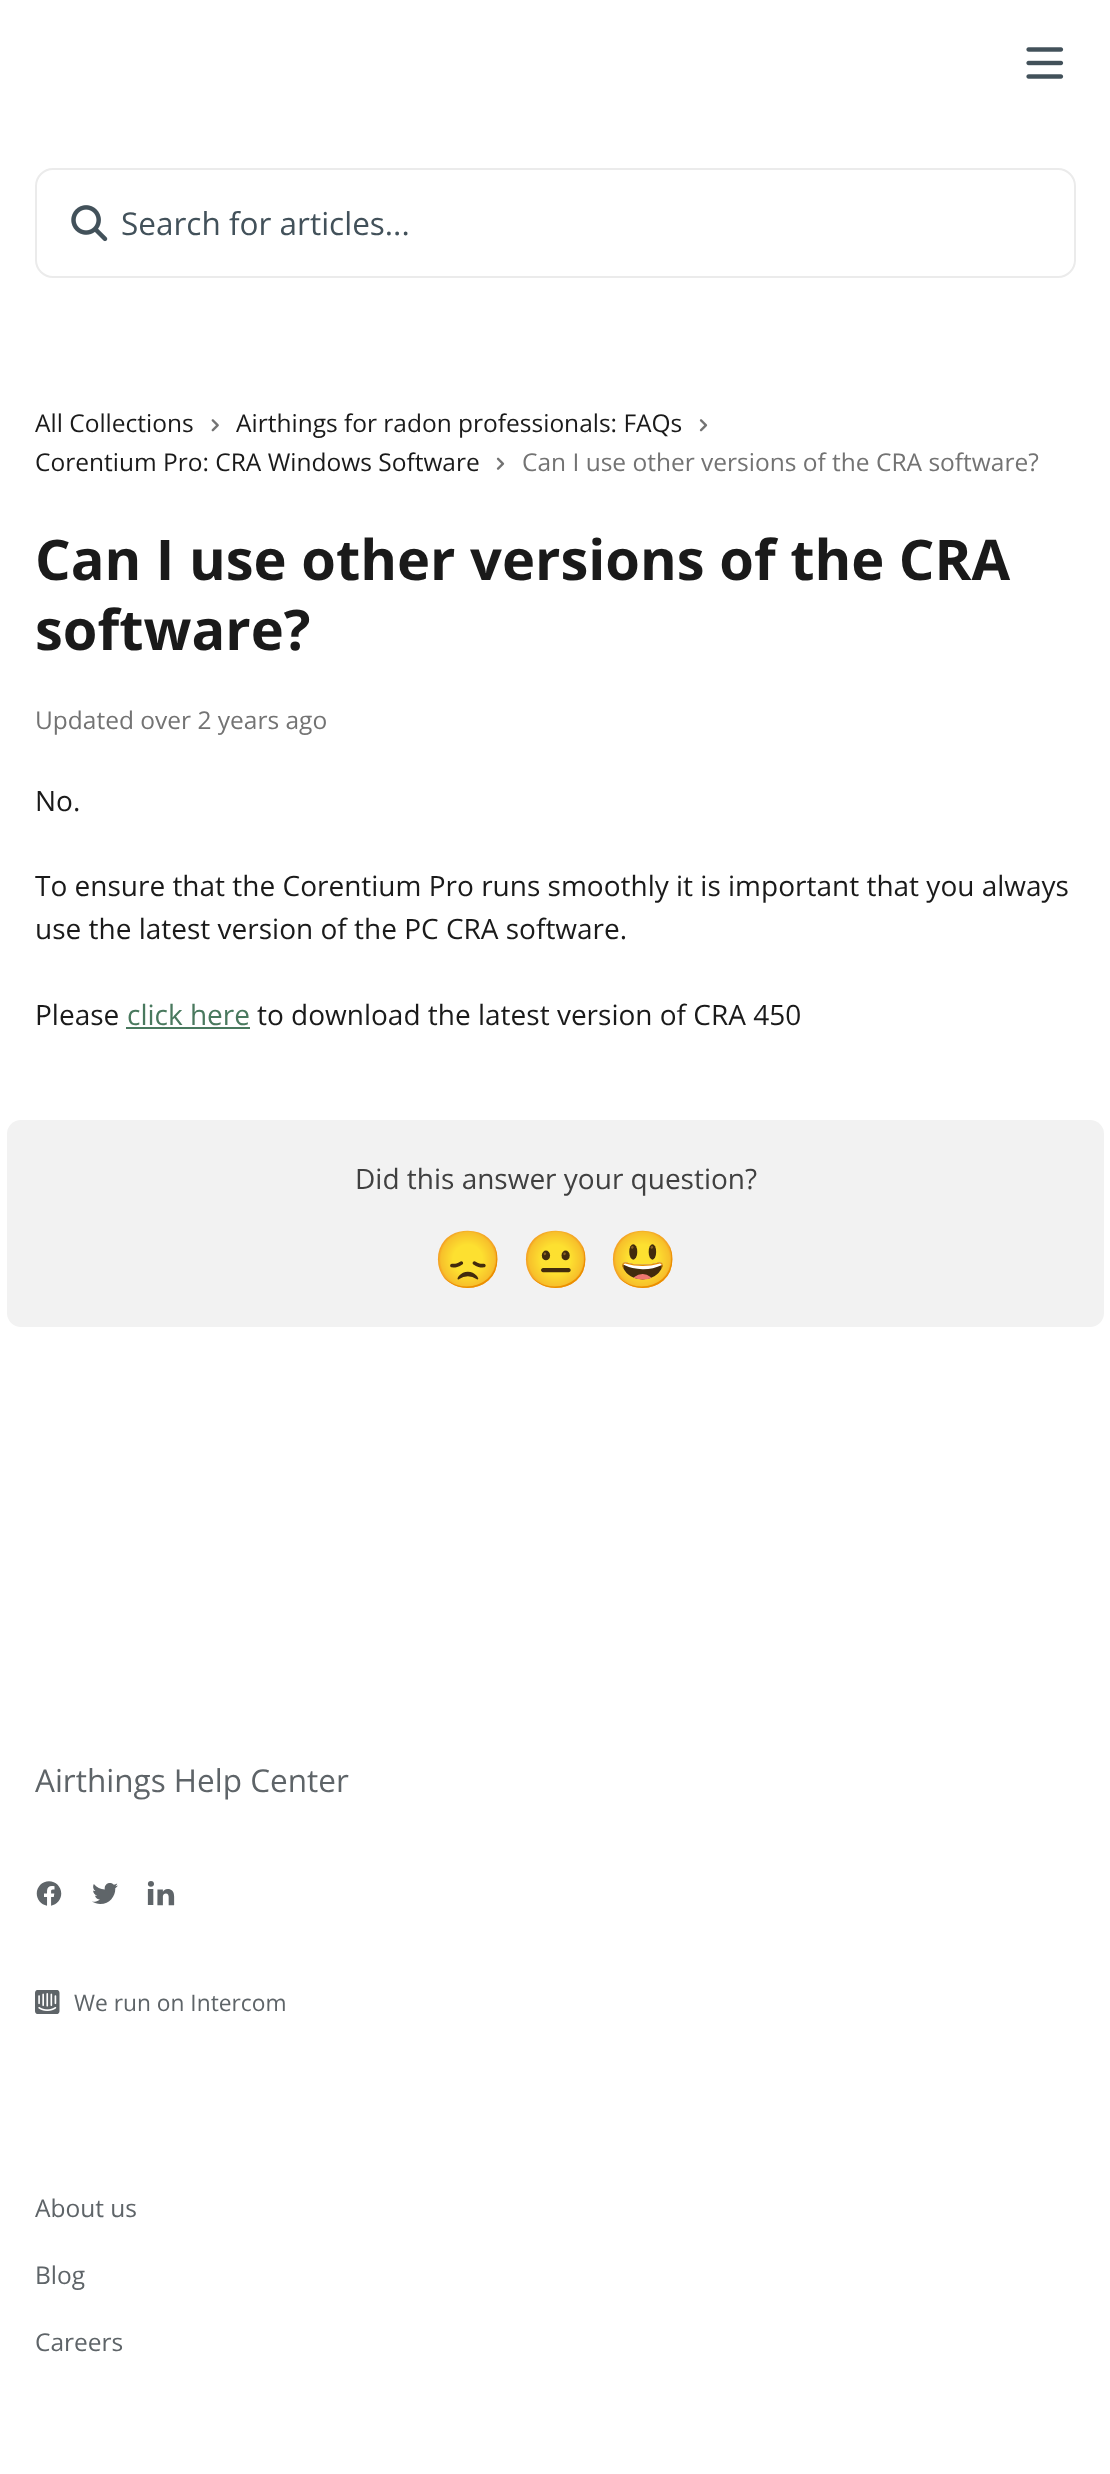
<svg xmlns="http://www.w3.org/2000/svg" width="1110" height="2474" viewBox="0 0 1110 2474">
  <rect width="100%" height="100%" fill="#fff"/>
  <image x="1026" y="47" width="38" height="32" href="img/1.png"/>
  <rect x="36" y="169" width="1039" height="108" rx="17" fill="none" stroke="#ebebeb" stroke-width="2"/>
  <image x="71" y="205" width="37" height="37" href="img/2.png"/>
  <image x="211" y="419" width="8" height="13" href="img/3.png"/>
  <image x="699" y="419" width="9" height="13" href="img/4.png"/>
  <image x="496" y="457" width="9" height="13" href="img/5.png"/>
  <path d="M126 1027h124v2H126z" fill="#49795e"/>
  <rect x="7" y="1120" width="1097" height="207" rx="14" fill="#f2f2f2"/>
  <image x="36" y="1881" width="26" height="25" href="img/6.png"/>
  <image x="92" y="1883" width="26" height="21" href="img/7.png"/>
  <image x="147" y="1881" width="28" height="25" href="img/8.png"/>
  <image x="35" y="1990" width="25" height="24" href="img/9.png"/>
  <text x="121" y="235" font-family="Open Sans" font-size="31.5" fill="#42515a">Search for articles...</text>
  <g font-family="Open Sans" font-size="24.5" fill="#1a1a1a">
    <text x="35" y="432">All Collections</text>
    <text x="236" y="432">Airthings for radon professionals: FAQs</text>
    <text x="35" y="471">Corentium Pro: CRA Windows Software</text>
  </g>
  <text x="522" y="471" font-family="Open Sans" font-size="24.5" fill="#737373">Can I use other versions of the CRA software?</text>
  <g font-family="Open Sans" font-size="56" font-weight="bold" fill="#1a1a1a">
    <text x="35" y="580">Can I use other versions of the CRA</text>
    <text x="35" y="650">software?</text>
  </g>
  <text x="35" y="729" font-family="Open Sans" font-size="24.5" fill="#737373">Updated over 2 years ago</text>
  <g font-family="Open Sans" font-size="28" fill="#1a1a1a">
    <text x="35" y="811">No.</text>
    <text x="35" y="896">To ensure that the Corentium Pro runs smoothly it is important that you always</text>
    <text x="35" y="939">use the latest version of the PC CRA software.</text>
    <text x="35" y="1025">Please</text>
  </g>
  <text x="127" y="1025" font-family="Open Sans" font-size="28" fill="#49795e">click here</text>
  <text x="257" y="1025" font-family="Open Sans" font-size="28" fill="#1a1a1a">to download the latest version of CRA 450</text>
  <text x="355" y="1189" font-family="Open Sans" font-size="28" fill="#404040">Did this answer your question?</text>
  <g font-family="Noto Color Emoji" font-size="56" fill="#404040">
    <text x="433" y="1279">😞</text>
    <text x="521" y="1279">😐</text>
    <text x="608" y="1279">😃</text>
  </g>
  <text x="35" y="1792" font-family="Open Sans" font-size="31.5" fill="#5e6468">Airthings Help Center</text>
  <text x="74" y="2011" font-family="Open Sans" font-size="22.75" fill="#5e6468">We run on Intercom</text>
  <g font-family="Open Sans" font-size="24.5" fill="#5e6468">
    <text x="35" y="2217">About us</text>
    <text x="35" y="2284">Blog</text>
    <text x="35" y="2351">Careers</text>
  </g>
</svg>
